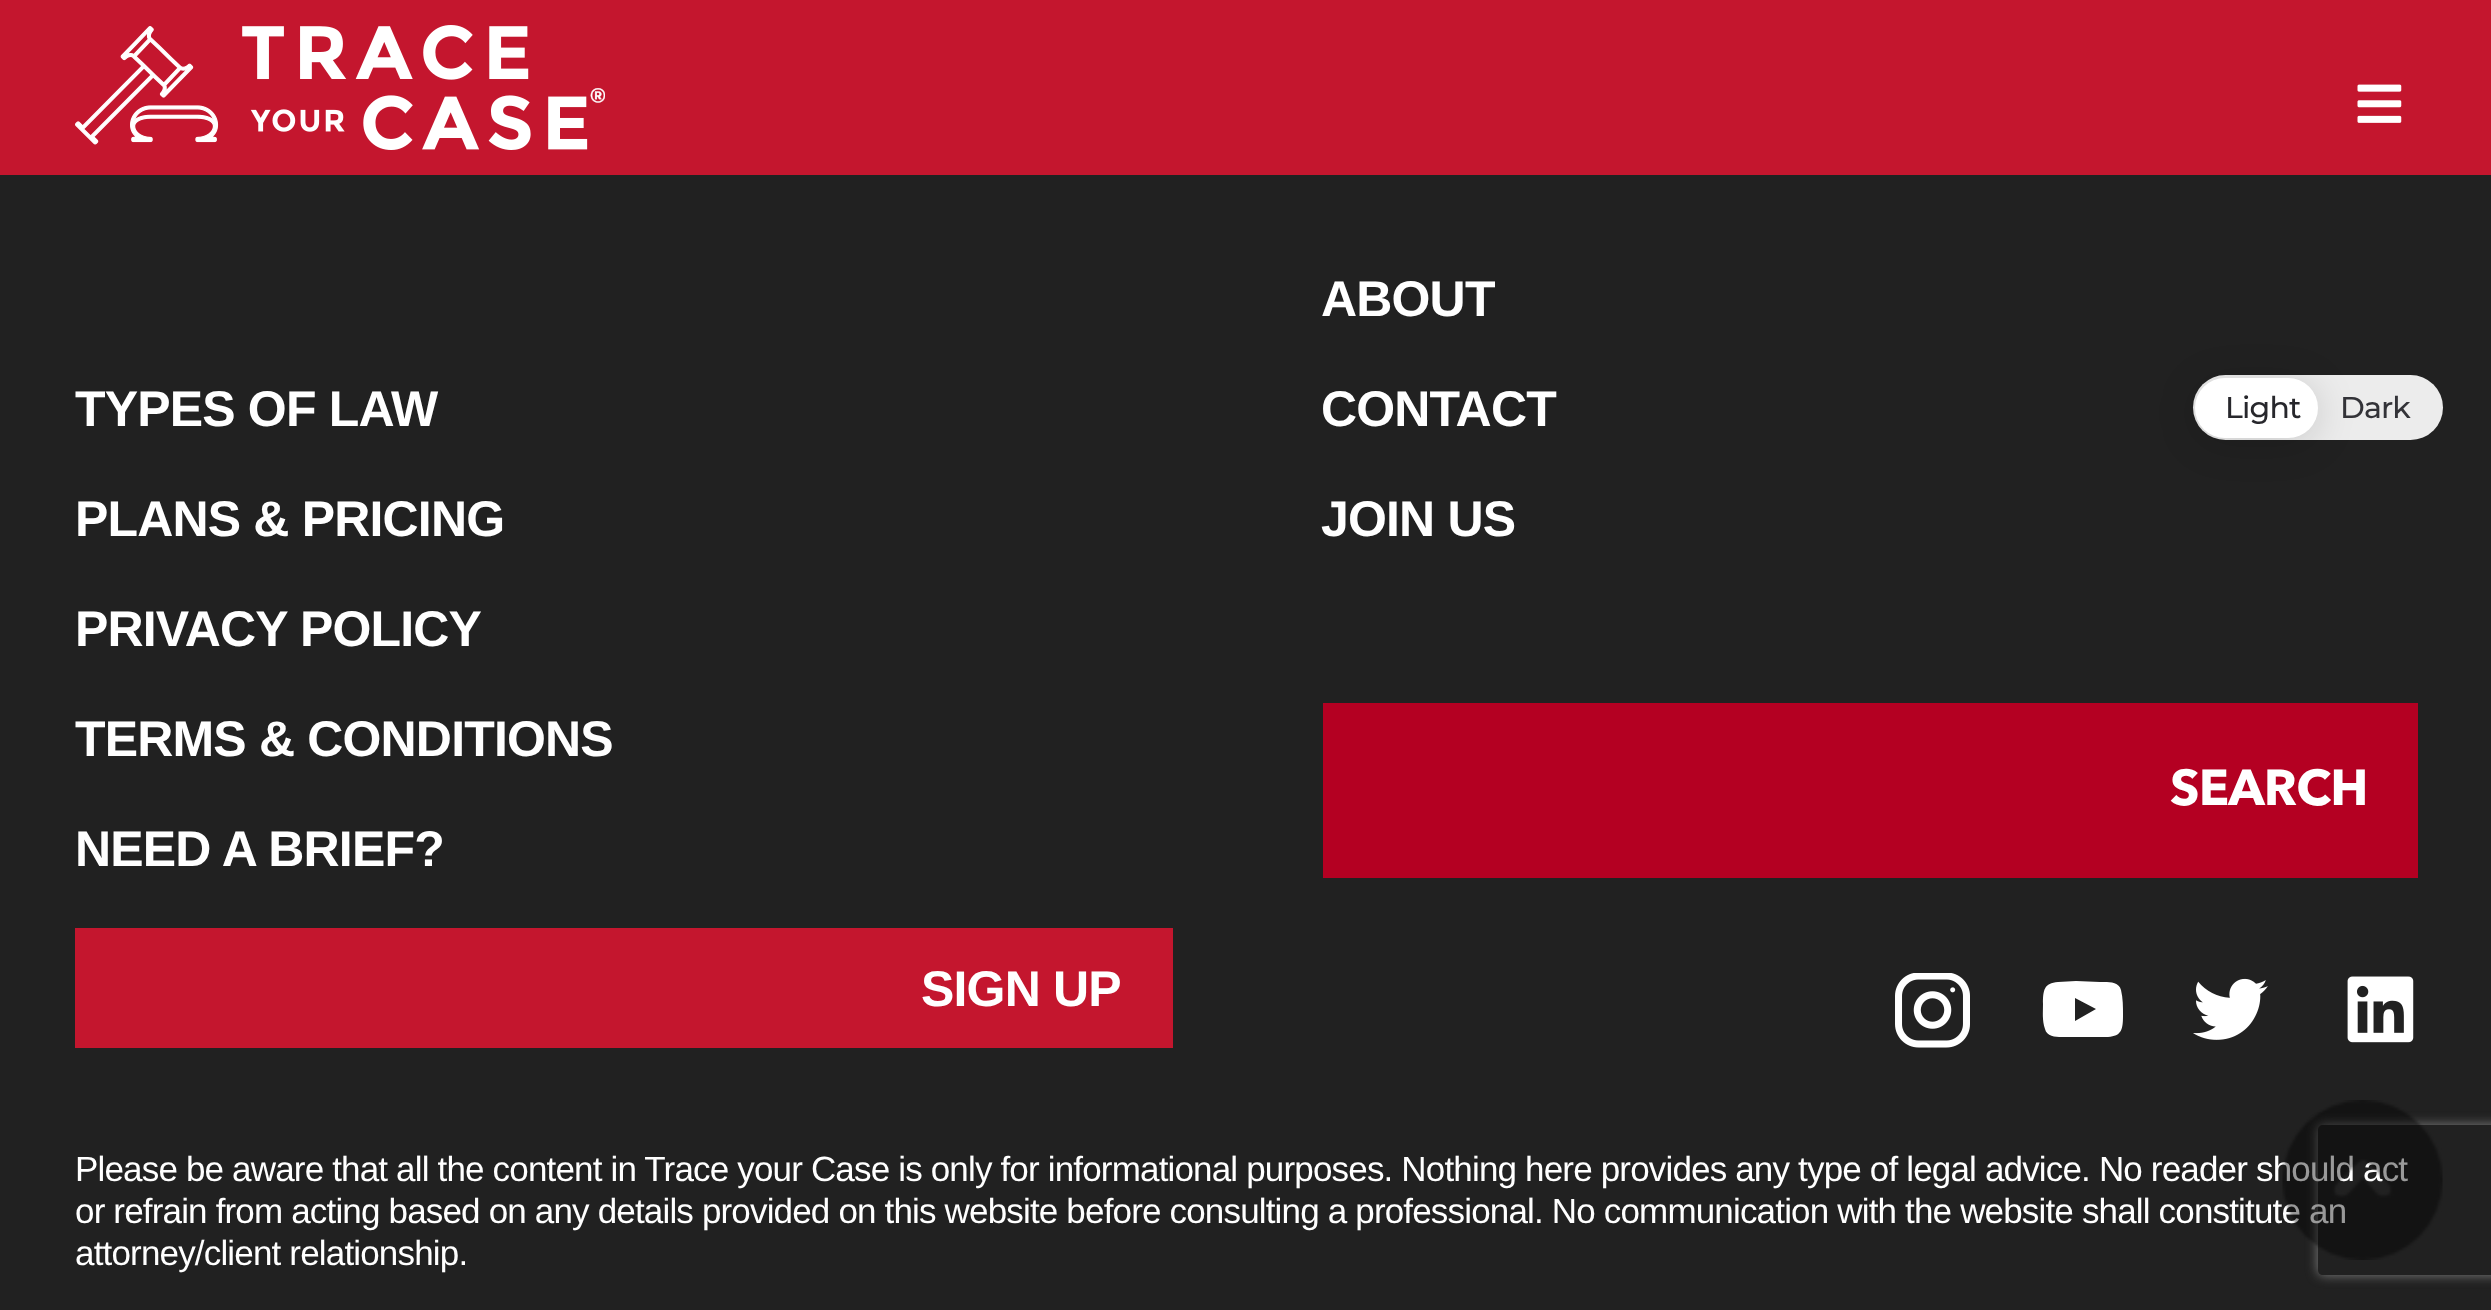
<svg xmlns="http://www.w3.org/2000/svg" width="2491" height="1310" viewBox="0 0 2491 1310">
  <defs>
    <clipPath id="clip1"><path d="M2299 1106H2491V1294H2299ZM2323 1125H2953C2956 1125 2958 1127 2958 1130V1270C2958 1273 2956 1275 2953 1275H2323C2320 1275 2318 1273 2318 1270V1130C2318 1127 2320 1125 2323 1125Z" clip-rule="evenodd"/></clipPath>
  </defs>
  <rect width="100%" height="100%" fill="#212121"/>
  <path d="M0 0h2491v175H0z" fill="#c4162e"/>
  <image x="75" y="25" width="530" height="125" href="img/1.png"/>
  <image x="2357" y="84" width="45" height="39" href="img/2.png"/>
  <path d="M1323 703h1095v175H1323z" fill="#b40022"/>
  <path d="M75 928h1098v120H75z" fill="#c4162e"/>
  <image x="1895" y="973" width="75" height="75" href="img/3.png"/>
  <path d="M2121 990C2123 998 2123 1007 2123 1015C2123 1029 2122 1036 2108 1037H2090H2066C2059 1037 2047 1038 2045 1029C2042 1021 2043 1012 2043 1004C2043 990 2044 983 2058 982L2076 981L2100 982C2107 982 2119 981 2121 990ZM2075 1021L2096 1009L2075 998Z" fill="#fff"/>
  <image x="2193" y="978" width="75" height="62" href="img/4.png"/>
  <image x="2347" y="976" width="67" height="67" href="img/5.png"/>
  <rect x="2193" y="375" width="250" height="65" rx="32.5" fill="#ececec"/>
  <rect x="2195" y="383" width="123" height="60" rx="30" fill="#00000026" filter="blur(19px)"/>
  <rect x="2195" y="378" width="123" height="60" rx="30" fill="#fff"/>
  <g clip-path="url(#clip1)">
    <rect x="2318" y="1125" width="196" height="150" rx="5" fill="#808080" filter="blur(6px)"/>
  </g>
  <g font-family="Liberation Sans" font-size="50" font-weight="bold" letter-spacing="-0.83" fill="#fff">
    <text x="75" y="426">TYPES OF LAW</text>
    <text x="75" y="536">PLANS &amp; PRICING</text>
    <text x="1321" y="316">ABOUT</text>
    <text x="1321" y="426">CONTACT</text>
    <text x="1321" y="536">JOIN US</text>
    <text x="75" y="646">PRIVACY POLICY</text>
    <text x="75" y="756">TERMS &amp; CONDITIONS</text>
    <text x="75" y="866">NEED A BRIEF?</text>
  </g>
  <text x="2170" y="805" font-family="Avenir Next" font-size="50" font-weight="bold" letter-spacing="-0.83" fill="#fff">SEARCH</text>
  <text x="921" y="1006" font-family="Liberation Sans" font-size="50" font-weight="bold" letter-spacing="-0.83" fill="#fff">SIGN UP</text>
  <g font-family="Liberation Sans" font-size="35" letter-spacing="-0.83" fill="#fff">
    <text x="75" y="1181">Please be aware that all the content in Trace your Case is only for informational purposes. Nothing here provides any type of legal advice. No reader should act</text>
    <text x="75" y="1223">or refrain from acting based on any details provided on this website before consulting a professional. No communication with the website shall constitute an</text>
    <text x="75" y="1265">attorney/client relationship.</text>
  </g>
  <text x="2225" y="418" font-family="Montserrat" font-size="30" font-weight="500" letter-spacing="-0.83" fill="#27272c">Light</text>
  <text x="2340" y="418" font-family="Montserrat" font-size="30" font-weight="500" letter-spacing="-0.83" fill="#333338">Dark</text>
  <image x="2282" y="1100" width="161" height="160" href="img/6.png"/>
</svg>
